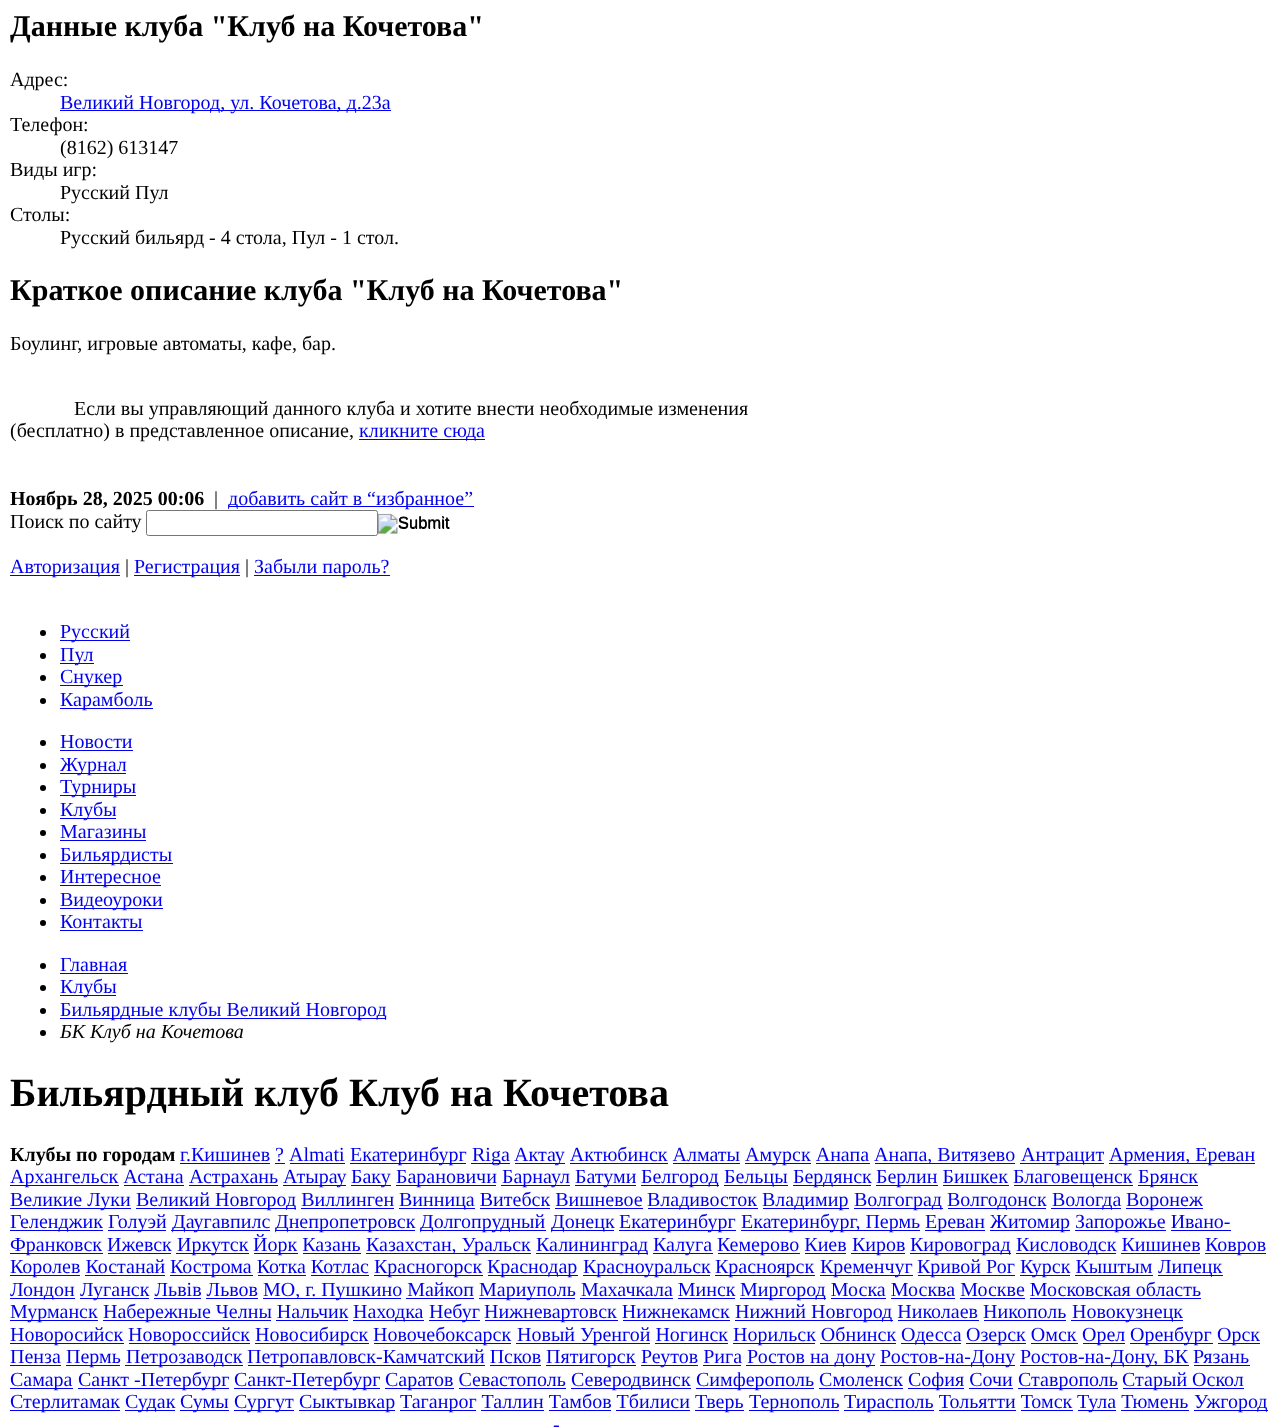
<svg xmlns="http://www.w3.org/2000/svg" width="1277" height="1427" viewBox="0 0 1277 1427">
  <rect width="100%" height="100%" fill="#fff"/>
  <path d="M60 110h331v1H60z" fill="#00e"/>
  <path d="M359 439h126v1H359z" fill="#00e"/>
  <path d="M229 506h245v1H229z" fill="#00e"/>
  <rect x="146.5" y="510.5" width="231" height="25" rx="2" fill="none" stroke="#767676"/>
  <image x="377" y="513" width="73" height="21" href="img/1.png"/>
  <path d="M10 575h110v1H10z" fill="#00e"/>
  <path d="M134 575h106v1H134z" fill="#00e"/>
  <path d="M254 575h136v1H254z" fill="#00e"/>
  <circle cx="43" cy="633" r="3" fill="#000"/>
  <path d="M60 640h70v1H60z" fill="#00e"/>
  <circle cx="43" cy="656" r="3" fill="#000"/>
  <path d="M60 663h34v1H60z" fill="#00e"/>
  <circle cx="43" cy="678" r="3" fill="#000"/>
  <path d="M60 685h63v1H60z" fill="#00e"/>
  <circle cx="43" cy="701" r="3" fill="#000"/>
  <path d="M60 708h93v1H60z" fill="#00e"/>
  <circle cx="43" cy="743" r="3" fill="#000"/>
  <path d="M60 750h73v1H60z" fill="#00e"/>
  <circle cx="43" cy="766" r="3" fill="#000"/>
  <path d="M60 773h66v1H60z" fill="#00e"/>
  <circle cx="43" cy="788" r="3" fill="#000"/>
  <path d="M60 795h76v1H60z" fill="#00e"/>
  <circle cx="43" cy="811" r="3" fill="#000"/>
  <path d="M60 818h56v1H60z" fill="#00e"/>
  <circle cx="43" cy="833" r="3" fill="#000"/>
  <path d="M60 840h86v1H60z" fill="#00e"/>
  <circle cx="43" cy="856" r="3" fill="#000"/>
  <path d="M60 863h113v1H60z" fill="#00e"/>
  <circle cx="43" cy="878" r="3" fill="#000"/>
  <path d="M60 885h101v1H60z" fill="#00e"/>
  <circle cx="43" cy="901" r="3" fill="#000"/>
  <path d="M60 908h103v1H60z" fill="#00e"/>
  <circle cx="43" cy="923" r="3" fill="#000"/>
  <path d="M60 930h83v1H60z" fill="#00e"/>
  <circle cx="43" cy="966" r="3" fill="#000"/>
  <path d="M60 973h68v1H60z" fill="#00e"/>
  <circle cx="43" cy="988" r="3" fill="#000"/>
  <path d="M60 995h56v1H60z" fill="#00e"/>
  <circle cx="43" cy="1011" r="3" fill="#000"/>
  <path d="M60 1018h326v1H60z" fill="#00e"/>
  <circle cx="43" cy="1033" r="3" fill="#000"/>
  <path d="M180 1163h90v1H180z" fill="#00e"/>
  <path d="M350 1163h116v1H350z" fill="#00e"/>
  <path d="M471 1163h39v1H471z" fill="#00e"/>
  <path d="M515 1163h50v1H515z" fill="#00e"/>
  <path d="M745 1163h66v1H745z" fill="#00e"/>
  <path d="M875 1163h140v1H875z" fill="#00e"/>
  <path d="M1020 1163h84v1H1020z" fill="#00e"/>
  <path d="M1109 1163h146v1H1109z" fill="#00e"/>
  <path d="M275 1163h10v1H275z" fill="#00e"/>
  <path d="M290 1163h55v1H290z" fill="#00e"/>
  <path d="M570 1163h98v1H570z" fill="#00e"/>
  <path d="M673 1163h67v1H673z" fill="#00e"/>
  <path d="M816 1163h54v1H816z" fill="#00e"/>
  <path d="M10 1185h109v1H10z" fill="#00e"/>
  <path d="M189 1185h89v1H189z" fill="#00e"/>
  <path d="M283 1185h63v1H283z" fill="#00e"/>
  <path d="M351 1185h40v1H351z" fill="#00e"/>
  <path d="M396 1185h100v1H396z" fill="#00e"/>
  <path d="M501 1185h69v1H501z" fill="#00e"/>
  <path d="M575 1185h61v1H575z" fill="#00e"/>
  <path d="M641 1185h78v1H641z" fill="#00e"/>
  <path d="M724 1185h64v1H724z" fill="#00e"/>
  <path d="M793 1185h78v1H793z" fill="#00e"/>
  <path d="M876 1185h62v1H876z" fill="#00e"/>
  <path d="M1014 1185h119v1H1014z" fill="#00e"/>
  <path d="M1138 1185h60v1H1138z" fill="#00e"/>
  <path d="M124 1185h60v1H124z" fill="#00e"/>
  <path d="M943 1185h66v1H943z" fill="#00e"/>
  <path d="M10 1208h121v1H10z" fill="#00e"/>
  <path d="M136 1208h160v1H136z" fill="#00e"/>
  <path d="M399 1208h76v1H399z" fill="#00e"/>
  <path d="M648 1208h110v1H648z" fill="#00e"/>
  <path d="M763 1208h86v1H763z" fill="#00e"/>
  <path d="M854 1208h89v1H854z" fill="#00e"/>
  <path d="M948 1208h98v1H948z" fill="#00e"/>
  <path d="M1051 1208h70v1H1051z" fill="#00e"/>
  <path d="M1126 1208h77v1H1126z" fill="#00e"/>
  <path d="M301 1208h93v1H301z" fill="#00e"/>
  <path d="M480 1208h70v1H480z" fill="#00e"/>
  <path d="M555 1208h88v1H555z" fill="#00e"/>
  <path d="M10 1230h93v1H10z" fill="#00e"/>
  <path d="M108 1230h58v1H108z" fill="#00e"/>
  <path d="M171 1230h99v1H171z" fill="#00e"/>
  <path d="M275 1230h140v1H275z" fill="#00e"/>
  <path d="M420 1230h126v1H420z" fill="#00e"/>
  <path d="M551 1230h63v1H551z" fill="#00e"/>
  <path d="M619 1230h117v1H619z" fill="#00e"/>
  <path d="M741 1230h179v1H741z" fill="#00e"/>
  <path d="M925 1230h60v1H925z" fill="#00e"/>
  <path d="M990 1230h80v1H990z" fill="#00e"/>
  <path d="M1075 1230h91v1H1075z" fill="#00e"/>
  <path d="M1171 1230h60v1H1171z" fill="#00e"/>
  <path d="M10 1253h93v1H10z" fill="#00e"/>
  <path d="M176 1253h73v1H176z" fill="#00e"/>
  <path d="M254 1253h44v1H254z" fill="#00e"/>
  <path d="M366 1253h165v1H366z" fill="#00e"/>
  <path d="M536 1253h112v1H536z" fill="#00e"/>
  <path d="M653 1253h60v1H653z" fill="#00e"/>
  <path d="M718 1253h82v1H718z" fill="#00e"/>
  <path d="M851 1253h54v1H851z" fill="#00e"/>
  <path d="M910 1253h101v1H910z" fill="#00e"/>
  <path d="M1016 1253h100v1H1016z" fill="#00e"/>
  <path d="M1205 1253h61v1H1205z" fill="#00e"/>
  <path d="M108 1253h63v1H108z" fill="#00e"/>
  <path d="M303 1253h58v1H303z" fill="#00e"/>
  <path d="M805 1253h41v1H805z" fill="#00e"/>
  <path d="M1121 1253h79v1H1121z" fill="#00e"/>
  <path d="M10 1275h70v1H10z" fill="#00e"/>
  <path d="M170 1275h83v1H170z" fill="#00e"/>
  <path d="M374 1275h109v1H374z" fill="#00e"/>
  <path d="M488 1275h90v1H488z" fill="#00e"/>
  <path d="M583 1275h127v1H583z" fill="#00e"/>
  <path d="M715 1275h100v1H715z" fill="#00e"/>
  <path d="M820 1275h93v1H820z" fill="#00e"/>
  <path d="M918 1275h97v1H918z" fill="#00e"/>
  <path d="M1020 1275h50v1H1020z" fill="#00e"/>
  <path d="M1158 1275h65v1H1158z" fill="#00e"/>
  <path d="M85 1275h80v1H85z" fill="#00e"/>
  <path d="M258 1275h48v1H258z" fill="#00e"/>
  <path d="M311 1275h58v1H311z" fill="#00e"/>
  <path d="M1075 1275h78v1H1075z" fill="#00e"/>
  <path d="M10 1298h65v1H10z" fill="#00e"/>
  <path d="M80 1298h69v1H80z" fill="#00e"/>
  <path d="M263 1298h138v1H263z" fill="#00e"/>
  <path d="M479 1298h96v1H479z" fill="#00e"/>
  <path d="M740 1298h86v1H740z" fill="#00e"/>
  <path d="M154 1298h47v1H154z" fill="#00e"/>
  <path d="M206 1298h52v1H206z" fill="#00e"/>
  <path d="M406 1298h68v1H406z" fill="#00e"/>
  <path d="M580 1298h93v1H580z" fill="#00e"/>
  <path d="M678 1298h57v1H678z" fill="#00e"/>
  <path d="M831 1298h55v1H831z" fill="#00e"/>
  <path d="M891 1298h64v1H891z" fill="#00e"/>
  <path d="M960 1298h65v1H960z" fill="#00e"/>
  <path d="M1030 1298h171v1H1030z" fill="#00e"/>
  <path d="M10 1320h88v1H10z" fill="#00e"/>
  <path d="M103 1320h168v1H103z" fill="#00e"/>
  <path d="M353 1320h71v1H353z" fill="#00e"/>
  <path d="M429 1320h51v1H429z" fill="#00e"/>
  <path d="M485 1320h133v1H485z" fill="#00e"/>
  <path d="M735 1320h158v1H735z" fill="#00e"/>
  <path d="M1071 1320h112v1H1071z" fill="#00e"/>
  <path d="M276 1320h72v1H276z" fill="#00e"/>
  <path d="M623 1320h107v1H623z" fill="#00e"/>
  <path d="M898 1320h81v1H898z" fill="#00e"/>
  <path d="M984 1320h82v1H984z" fill="#00e"/>
  <path d="M10 1343h114v1H10z" fill="#00e"/>
  <path d="M129 1343h121v1H129z" fill="#00e"/>
  <path d="M255 1343h114v1H255z" fill="#00e"/>
  <path d="M374 1343h137v1H374z" fill="#00e"/>
  <path d="M516 1343h134v1H516z" fill="#00e"/>
  <path d="M733 1343h82v1H733z" fill="#00e"/>
  <path d="M901 1343h60v1H901z" fill="#00e"/>
  <path d="M966 1343h60v1H966z" fill="#00e"/>
  <path d="M1083 1343h42v1H1083z" fill="#00e"/>
  <path d="M1130 1343h83v1H1130z" fill="#00e"/>
  <path d="M1218 1343h42v1H1218z" fill="#00e"/>
  <path d="M655 1343h73v1H655z" fill="#00e"/>
  <path d="M820 1343h76v1H820z" fill="#00e"/>
  <path d="M1031 1343h47v1H1031z" fill="#00e"/>
  <path d="M10 1365h51v1H10z" fill="#00e"/>
  <path d="M66 1365h54v1H66z" fill="#00e"/>
  <path d="M125 1365h118v1H125z" fill="#00e"/>
  <path d="M248 1365h237v1H248z" fill="#00e"/>
  <path d="M546 1365h90v1H546z" fill="#00e"/>
  <path d="M641 1365h57v1H641z" fill="#00e"/>
  <path d="M746 1365h129v1H746z" fill="#00e"/>
  <path d="M880 1365h135v1H880z" fill="#00e"/>
  <path d="M1020 1365h169v1H1020z" fill="#00e"/>
  <path d="M490 1365h51v1H490z" fill="#00e"/>
  <path d="M703 1365h38v1H703z" fill="#00e"/>
  <path d="M1194 1365h56v1H1194z" fill="#00e"/>
  <path d="M10 1388h63v1H10z" fill="#00e"/>
  <path d="M78 1388h151v1H78z" fill="#00e"/>
  <path d="M234 1388h146v1H234z" fill="#00e"/>
  <path d="M385 1388h69v1H385z" fill="#00e"/>
  <path d="M571 1388h120v1H571z" fill="#00e"/>
  <path d="M696 1388h118v1H696z" fill="#00e"/>
  <path d="M908 1388h56v1H908z" fill="#00e"/>
  <path d="M1018 1388h100v1H1018z" fill="#00e"/>
  <path d="M1123 1388h121v1H1123z" fill="#00e"/>
  <path d="M459 1388h107v1H459z" fill="#00e"/>
  <path d="M819 1388h84v1H819z" fill="#00e"/>
  <path d="M969 1388h44v1H969z" fill="#00e"/>
  <path d="M10 1410h110v1H10z" fill="#00e"/>
  <path d="M125 1410h50v1H125z" fill="#00e"/>
  <path d="M180 1410h49v1H180z" fill="#00e"/>
  <path d="M234 1410h60v1H234z" fill="#00e"/>
  <path d="M299 1410h96v1H299z" fill="#00e"/>
  <path d="M400 1410h76v1H400z" fill="#00e"/>
  <path d="M695 1410h49v1H695z" fill="#00e"/>
  <path d="M749 1410h90v1H749z" fill="#00e"/>
  <path d="M844 1410h90v1H844z" fill="#00e"/>
  <path d="M1078 1410h38v1H1078z" fill="#00e"/>
  <path d="M1194 1410h74v1H1194z" fill="#00e"/>
  <path d="M481 1410h63v1H481z" fill="#00e"/>
  <path d="M549 1410h62v1H549z" fill="#00e"/>
  <path d="M616 1410h74v1H616z" fill="#00e"/>
  <path d="M939 1410h77v1H939z" fill="#00e"/>
  <path d="M1021 1410h52v1H1021z" fill="#00e"/>
  <path d="M1121 1410h68v1H1121z" fill="#00e"/>
  <text x="10" y="36" font-family="Liberation Serif" font-size="30" font-weight="bold" fill="#000">Данные клуба "Клуб на Кочетова"</text>
  <text x="10" y="86" font-family="Liberation Serif" font-size="20" fill="#000">Адрес:</text>
  <text x="60" y="109" font-family="Liberation Serif" font-size="20" fill="#00e">Великий Новгород, ул. Кочетова, д.23а</text>
  <g font-family="Liberation Serif" font-size="20" fill="#000">
    <text x="10" y="131">Телефон:</text>
    <text x="60" y="154">(8162) 613147</text>
    <text x="10" y="176">Виды игр:</text>
    <text x="60" y="199">Русский Пул</text>
    <text x="10" y="221">Столы:</text>
    <text x="60" y="244">Русский бильярд - 4 стола, Пул - 1 стол.</text>
  </g>
  <text x="10" y="300" font-family="Liberation Serif" font-size="30" font-weight="bold" fill="#000">Краткое описание клуба "Клуб на Кочетова"</text>
  <g font-family="Liberation Serif" font-size="20" fill="#000">
    <text x="10" y="350">Боулинг, игровые автоматы, кафе, бар.</text>
    <text x="74" y="415">Если вы управляющий данного клуба и хотите внести необходимые изменения</text>
    <text x="10" y="437">(бесплатно) в представленное описание,</text>
  </g>
  <text x="359" y="437" font-family="Liberation Serif" font-size="20" fill="#00e">кликните сюда</text>
  <text x="10" y="505" font-family="Liberation Serif" font-size="20" font-weight="bold" fill="#000">Ноябрь 28, 2025 00:06</text>
  <text x="214" y="505" font-family="Liberation Serif" font-size="20" fill="#000">|</text>
  <text x="228" y="505" font-family="Liberation Serif" font-size="20" fill="#00e">добавить сайт в “избранное”</text>
  <text x="10" y="528" font-family="Liberation Serif" font-size="20" fill="#000">Поиск по сайту</text>
  <text x="398" y="528" font-family="Liberation Sans" font-size="16.5" fill="#000">Submit</text>
  <text x="10" y="573" font-family="Liberation Serif" font-size="20" fill="#00e">Авторизация</text>
  <text x="125" y="573" font-family="Liberation Serif" font-size="20" fill="#000">|</text>
  <text x="134" y="573" font-family="Liberation Serif" font-size="20" fill="#00e">Регистрация</text>
  <text x="245" y="573" font-family="Liberation Serif" font-size="20" fill="#000">|</text>
  <g font-family="Liberation Serif" font-size="20" fill="#00e">
    <text x="254" y="573">Забыли пароль?</text>
    <text x="60" y="638">Русский</text>
    <text x="60" y="661">Пул</text>
    <text x="60" y="683">Снукер</text>
    <text x="60" y="706">Карамболь</text>
    <text x="60" y="748">Новости</text>
    <text x="60" y="771">Журнал</text>
    <text x="60" y="793">Турниры</text>
    <text x="60" y="816">Клубы</text>
    <text x="60" y="838">Магазины</text>
    <text x="60" y="861">Бильярдисты</text>
    <text x="60" y="883">Интересное</text>
    <text x="60" y="906">Видеоуроки</text>
    <text x="60" y="928">Контакты</text>
    <text x="60" y="971">Главная</text>
    <text x="60" y="993">Клубы</text>
    <text x="60" y="1016">Бильярдные клубы Великий Новгород</text>
  </g>
  <text x="60" y="1038" font-family="Liberation Serif" font-size="20" font-style="italic" fill="#000">БК Клуб на Кочетова</text>
  <text x="10" y="1106" font-family="Liberation Serif" font-size="40" font-weight="bold" fill="#000">Бильярдный клуб Клуб на Кочетова</text>
  <text x="10" y="1161" font-family="Liberation Serif" font-size="20" font-weight="bold" fill="#000">Клубы по городам</text>
  <g font-family="Liberation Serif" font-size="20" fill="#00e">
    <text x="180" y="1161">г.Кишинев ? Almati</text>
    <text x="350" y="1161">Eкатеринбург</text>
    <text x="472" y="1161">Riga</text>
    <text x="514" y="1161">Актау Актюбинск Алматы</text>
    <text x="745" y="1161">Амурск Анапа</text>
    <text x="874" y="1161">Анапа, Витязево</text>
    <text x="1021" y="1161">Антрацит</text>
    <text x="1109" y="1161">Армения, Ереван</text>
    <text x="10" y="1183">Архангельск Астана</text>
    <text x="189" y="1183">Астрахань</text>
    <text x="283" y="1183">Атырау</text>
    <text x="351" y="1183">Баку</text>
    <text x="396" y="1183">Барановичи</text>
    <text x="502" y="1183">Барнаул</text>
    <text x="575" y="1183">Батуми</text>
    <text x="641" y="1183">Белгород</text>
    <text x="724" y="1183">Бельцы</text>
    <text x="793" y="1183">Бердянск</text>
    <text x="876" y="1183">Берлин Бишкек</text>
    <text x="1013" y="1183">Благовещенск</text>
    <text x="1138" y="1183">Брянск</text>
    <text x="10" y="1206">Великие Луки</text>
    <text x="136" y="1206">Великий Новгород Виллинген</text>
    <text x="399" y="1206">Винница Витебск Вишневое</text>
    <text x="647" y="1206">Владивосток</text>
    <text x="762" y="1206">Владимир</text>
    <text x="854" y="1206">Волгоград</text>
    <text x="947" y="1206">Волгодонск</text>
    <text x="1052" y="1206">Вологда</text>
    <text x="1126" y="1206">Воронеж</text>
    <text x="10" y="1228">Геленджик</text>
    <text x="108" y="1228">Голуэй</text>
    <text x="172" y="1228">Даугавпилс</text>
    <text x="275" y="1228">Днепропетровск</text>
    <text x="420" y="1228">Долгопрудный</text>
    <text x="551" y="1228">Донецк</text>
    <text x="619" y="1228">Екатеринбург</text>
    <text x="741" y="1228">Екатеринбург, Пермь</text>
    <text x="925" y="1228">Ереван</text>
    <text x="990" y="1228">Житомир</text>
    <text x="1075" y="1228">Запорожье Ивано-</text>
    <text x="10" y="1251">Франковск Ижевск</text>
    <text x="177" y="1251">Иркутск</text>
    <text x="253" y="1251">Йорк Казань</text>
    <text x="366" y="1251">Казахстан, Уральск</text>
    <text x="536" y="1251">Калининград</text>
    <text x="653" y="1251">Калуга</text>
    <text x="717" y="1251">Кемерово Киев</text>
    <text x="852" y="1251">Киров</text>
    <text x="910" y="1251">Кировоград</text>
    <text x="1016" y="1251">Кисловодск Кишинев</text>
    <text x="1205" y="1251">Ковров</text>
    <text x="10" y="1273">Королев Костанай</text>
    <text x="170" y="1273">Кострома Котка Котлас</text>
    <text x="374" y="1273">Красногорск</text>
    <text x="487" y="1273">Краснодар</text>
    <text x="583" y="1273">Красноуральск</text>
    <text x="715" y="1273">Красноярск</text>
    <text x="820" y="1273">Кременчуг</text>
    <text x="917" y="1273">Кривой Рог</text>
    <text x="1020" y="1273">Курск Кыштым</text>
    <text x="1158" y="1273">Липецк</text>
    <text x="10" y="1296">Лондон</text>
    <text x="80" y="1296">Луганск Львів Львов</text>
    <text x="263" y="1296">МО, г. Пушкино Майкоп</text>
    <text x="479" y="1296">Мариуполь Махачкала Минск</text>
    <text x="740" y="1296">Миргород Моска Москва Москве Московская область</text>
    <text x="10" y="1318">Мурманск</text>
    <text x="103" y="1318">Набережные Челны Нальчик</text>
    <text x="353" y="1318">Находка</text>
    <text x="429" y="1318">Небуг</text>
    <text x="484" y="1318">Нижневартовск Нижнекамск</text>
    <text x="735" y="1318">Нижний Новгород Николаев Никополь</text>
    <text x="1072" y="1318">Новокузнецк</text>
    <text x="10" y="1341">Новоросийск</text>
    <text x="128" y="1341">Новороссийск</text>
    <text x="255" y="1341">Новосибирск</text>
    <text x="373" y="1341">Новочебоксарск</text>
    <text x="517" y="1341">Новый Уренгой Ногинск</text>
    <text x="733" y="1341">Норильск Обнинск</text>
    <text x="901" y="1341">Одесса</text>
    <text x="966" y="1341">Озерск Омск</text>
    <text x="1082" y="1341">Орел</text>
    <text x="1130" y="1341">Оренбург</text>
    <text x="1217" y="1341">Орск</text>
    <text x="10" y="1363">Пенза</text>
    <text x="66" y="1363">Пермь</text>
    <text x="126" y="1363">Петрозаводск</text>
    <text x="247" y="1363">Петропавловск-Камчатский Псков</text>
    <text x="546" y="1363">Пятигорск</text>
    <text x="641" y="1363">Реутов Рига</text>
    <text x="747" y="1363">Ростов на дону</text>
    <text x="880" y="1363">Ростов-на-Дону</text>
    <text x="1020" y="1363">Ростов-на-Дону, БК Рязань</text>
    <text x="10" y="1386">Самара</text>
    <text x="78" y="1386">Санкт -Петербург</text>
    <text x="234" y="1386">Санкт-Петербург</text>
    <text x="385" y="1386">Саратов Севастополь</text>
    <text x="571" y="1386">Северодвинск</text>
    <text x="696" y="1386">Симферополь Смоленск</text>
    <text x="908" y="1386">София Сочи</text>
    <text x="1018" y="1386">Ставрополь</text>
    <text x="1122" y="1386">Старый Оскол</text>
    <text x="10" y="1408">Стерлитамак</text>
    <text x="125" y="1408">Судак</text>
    <text x="180" y="1408">Сумы</text>
    <text x="234" y="1408">Сургут</text>
    <text x="299" y="1408">Сыктывкар</text>
    <text x="400" y="1408">Таганрог Таллин Тамбов Тбилиси</text>
    <text x="695" y="1408">Тверь</text>
    <text x="749" y="1408">Тернополь</text>
    <text x="844" y="1408">Тирасполь Тольятти Томск</text>
    <text x="1077" y="1408">Тула Тюмень</text>
    <text x="1194" y="1408">Ужгород</text>
    <text x="553" y="1431">-</text>
  </g>
</svg>
